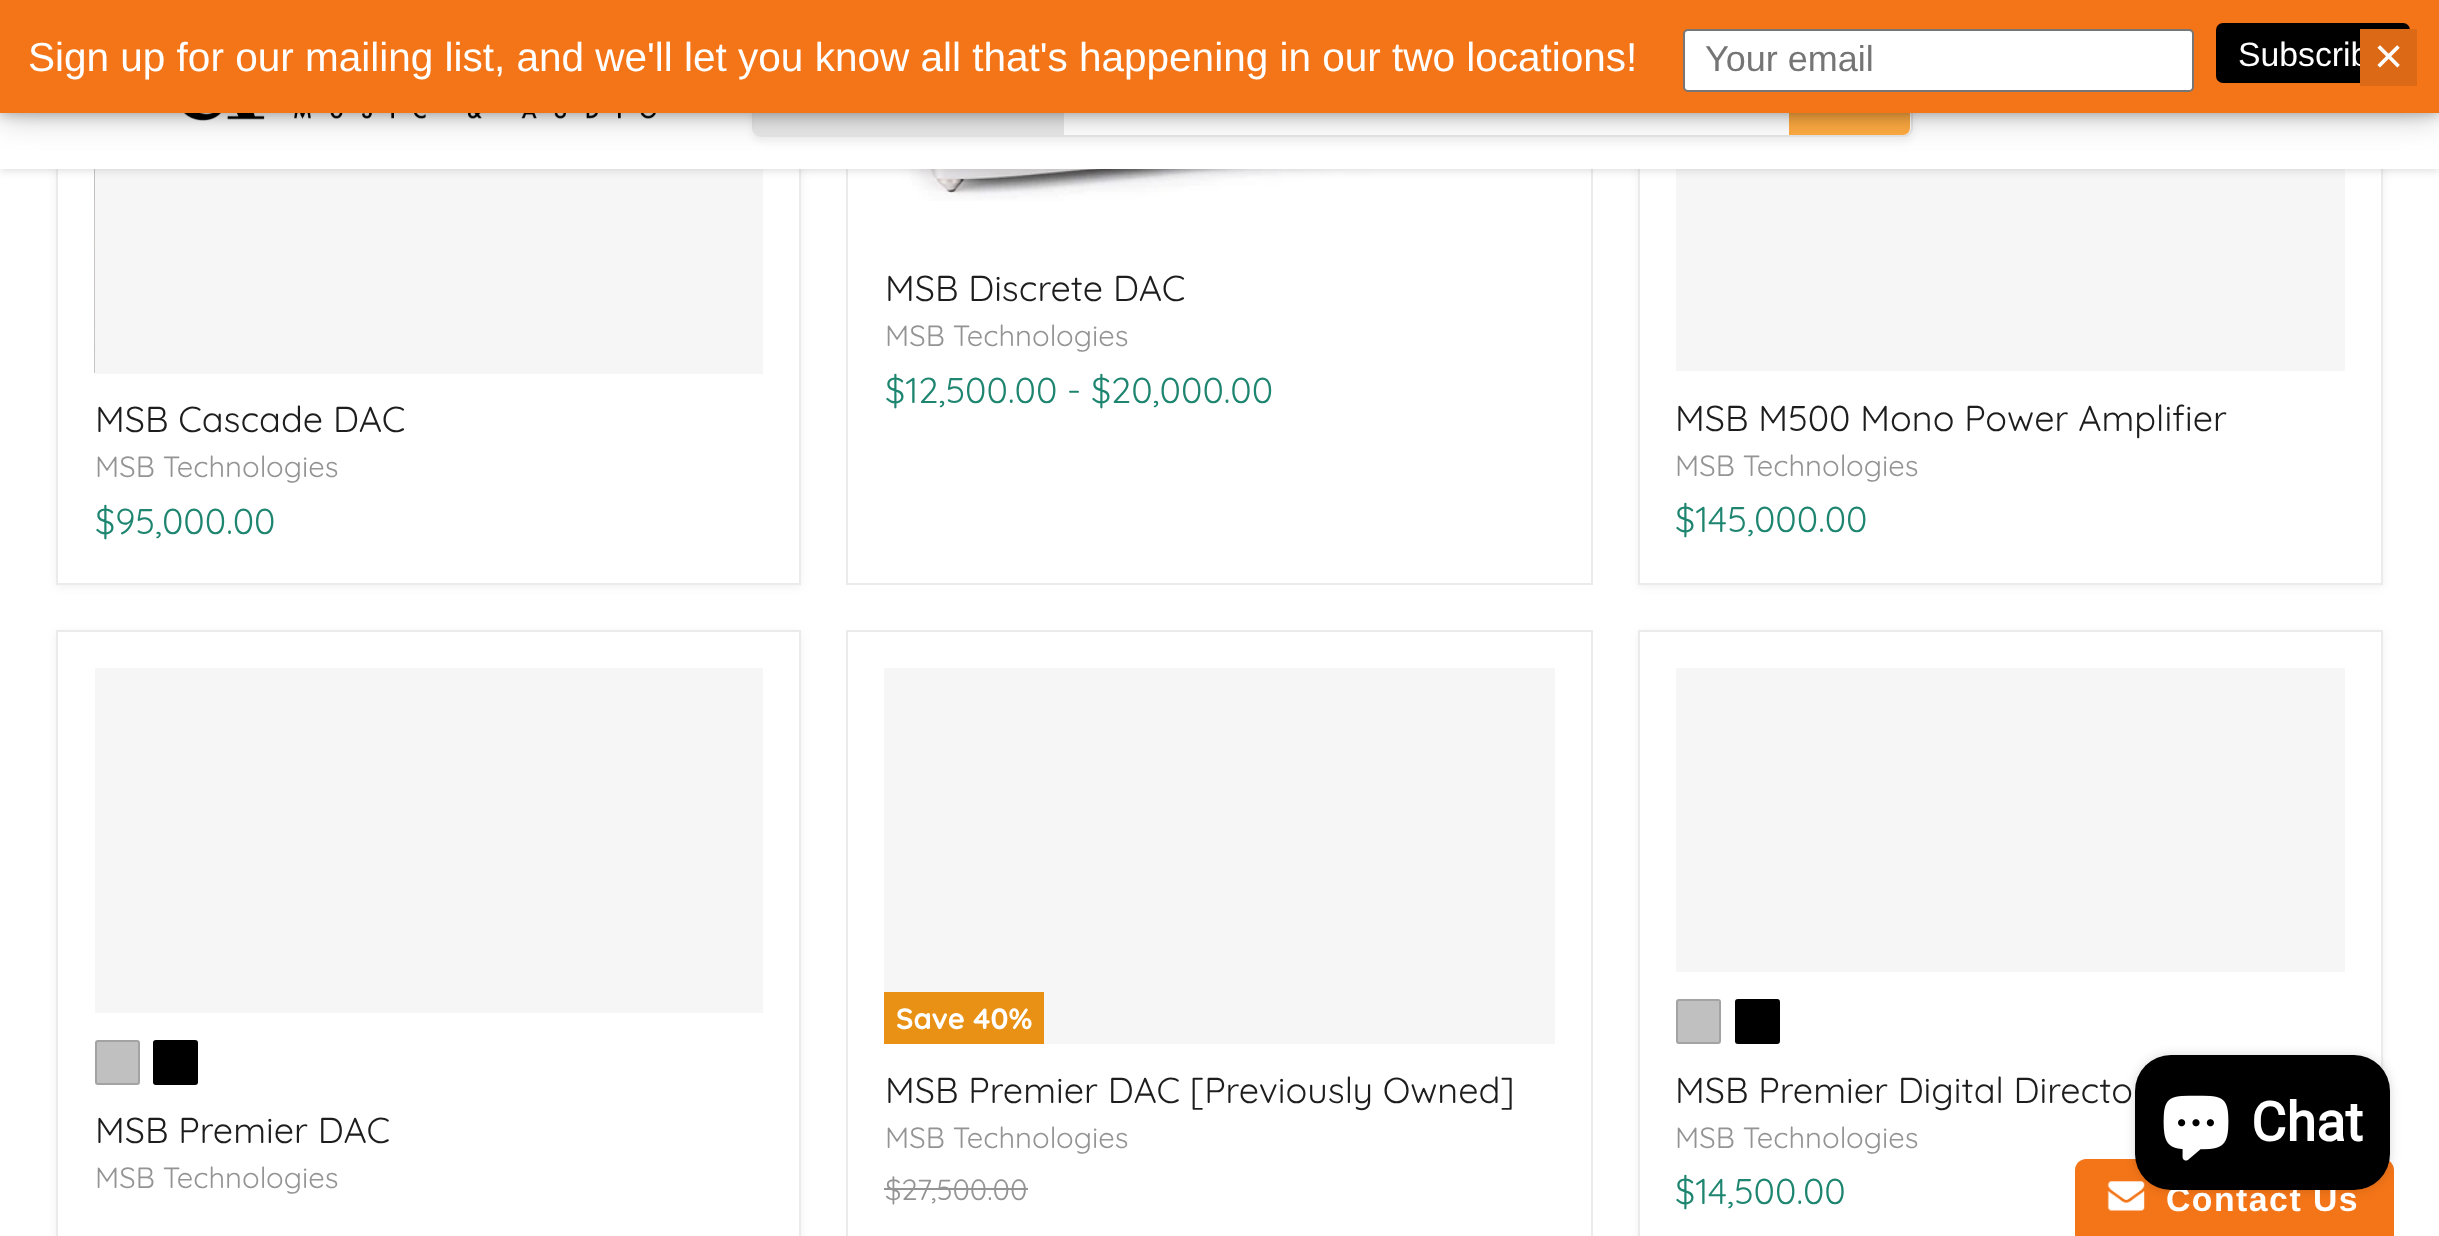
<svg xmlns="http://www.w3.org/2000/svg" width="2439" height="1236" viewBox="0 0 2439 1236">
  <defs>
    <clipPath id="clip1"><path d="M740 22H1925V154H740ZM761 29H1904C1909 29 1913 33 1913 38V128C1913 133 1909 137 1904 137H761C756 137 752 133 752 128V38C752 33 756 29 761 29Z" clip-rule="evenodd"/></clipPath>
  </defs>
  <rect width="100%" height="100%" fill="#fff"/>
  <path d="M847 -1h745v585H847z" fill="none" stroke="#ebebeb" stroke-width="2"/>
  <image x="897" y="169" width="645" height="32" href="img/2.png"/>
  <path d="M56 -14h745v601H56z" fill="#8080801c" filter="blur(4.5px)"/>
  <path d="M58 169h741v414H58z" fill="#fff"/>
  <path d="M57 -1h743v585H57z" fill="none" stroke="#ebebeb" stroke-width="2"/>
  <image x="94" y="169" width="1" height="204" href="img/3.png"/>
  <path d="M95 169h668v205H95z" fill="#f6f6f6"/>
  <path d="M1638 -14h745v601H1638z" fill="#8080801c" filter="blur(4.5px)"/>
  <path d="M1640 169h741v414H1640z" fill="#fff"/>
  <path d="M1639 -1h743v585H1639z" fill="none" stroke="#ebebeb" stroke-width="2"/>
  <path d="M1676 169h669v202H1676z" fill="#f6f6f6"/>
  <path d="M0 2h2439v169H0z" fill="#80808040" filter="blur(4.5px)"/>
  <path d="M0 113h2439v56H0z" fill="#fff"/>
  <image x="184" y="113" width="472" height="8" href="img/1.png"/>
  <g clip-path="url(#clip1)">
    <rect x="752" y="34" width="1161" height="108" rx="9" fill="#8080801c" filter="blur(3.5px)"/>
  </g>
  <rect x="753" y="30" width="1159" height="106" rx="8" fill="none" stroke="#80808033" stroke-width="2"/>
  <path d="M761 32H1064V135H761C757 135 754 132 754 128V39C754 35 757 32 761 32Z" fill="#e8e8e8"/>
  <path d="M1790 33H1903C1906.5 33 1909 35.5 1909 39V128C1909 131.5 1906.5 134 1903 134H1790Z" fill="#ffab41" stroke="#ffab41" stroke-width="2"/>
  <path d="M0 2h2439v113H0z" fill="#00000033" filter="blur(5.5px)"/>
  <path d="M0 0h2439v113H0z" fill="#0000004d" filter="blur(17px)"/>
  <path d="M0 0h2439v113H0z" fill="#f47518"/>
  <rect x="1684" y="30" width="509" height="61" rx="4" fill="#fff" stroke="#767676" stroke-width="2"/>
  <rect x="2216" y="23" width="194" height="60" rx="7" fill="#000"/>
  <path d="M56 632h745v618H56z" fill="#8080801c" filter="blur(4.5px)"/>
  <path d="M57 631h743v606H57z" fill="#fff" stroke="#ebebeb" stroke-width="2"/>
  <path d="M95 668h668v345H95z" fill="#f6f6f6"/>
  <rect x="95" y="1040" width="45" height="45" rx="3" fill="#c0c0c0"/>
  <rect x="96" y="1041" width="43" height="43" rx="2" fill="none" stroke="#00000026" stroke-width="2"/>
  <rect x="153" y="1040" width="45" height="45" rx="3" fill="#000"/>
  <rect x="154" y="1041" width="43" height="43" rx="2" fill="none" stroke="#00000026" stroke-width="2"/>
  <path d="M847 631h745v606H847z" fill="none" stroke="#ebebeb" stroke-width="2"/>
  <path d="M884 668h671v376H884z" fill="#f6f6f6"/>
  <path d="M884 992h160v52H884z" fill="#e99114"/>
  <path d="M884 1188h144v2H884z" fill="#949494"/>
  <path d="M1638 632h745v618H1638z" fill="#8080801c" filter="blur(4.5px)"/>
  <path d="M1639 631h743v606H1639z" fill="#fff" stroke="#ebebeb" stroke-width="2"/>
  <path d="M1676 668h669v304H1676z" fill="#f6f6f6"/>
  <rect x="1676" y="999" width="45" height="45" rx="3" fill="#c0c0c0"/>
  <rect x="1677" y="1000" width="43" height="43" rx="2" fill="none" stroke="#00000026" stroke-width="2"/>
  <rect x="1735" y="999" width="45" height="45" rx="3" fill="#000"/>
  <rect x="1736" y="1000" width="43" height="43" rx="2" fill="none" stroke="#00000026" stroke-width="2"/>
  <path d="M2086 1159H2383C2389 1159 2394 1164 2394 1170V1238H2075V1170C2075 1164 2080 1159 2086 1159Z" fill="#f47518"/>
  <image x="2107" y="1181" width="38" height="30" href="img/5.png"/>
  <rect x="2135" y="1055" width="255" height="135" rx="36" fill="#00000026" filter="blur(5.5px)"/>
  <text x="28" y="71" font-family="Liberation Sans" font-size="40.5" fill="#fff">Sign up for our mailing list, and we'll let you know all that's happening in our two locations!</text>
  <text x="1705" y="71" font-family="Liberation Sans" font-size="36" fill="#757575">Your email</text>
  <text x="2238" y="66" font-family="Liberation Sans" font-size="33.75" fill="#fff">Subscrib</text>
  <path d="M2360 29h57v57H2360z" fill="#dc6916"/>
  <text x="2374" y="73" font-family="Liberation Sans" font-size="50" fill="#fff">×</text>
  <text x="885" y="301" font-family="Quicksand" font-size="36" font-weight="300" fill="#1d1d1d">MSB Discrete DAC</text>
  <text x="885" y="346" font-family="Quicksand" font-size="29.25" font-weight="300" fill="#949494">MSB Technologies</text>
  <text x="885" y="403" font-family="Quicksand" font-size="36" font-weight="300" fill="#1e8570">$12,500.00 - $20,000.00</text>
  <text x="95" y="432" font-family="Quicksand" font-size="36" font-weight="300" fill="#1d1d1d">MSB Cascade DAC</text>
  <text x="95" y="477" font-family="Quicksand" font-size="29.25" font-weight="300" fill="#949494">MSB Technologies</text>
  <text x="95" y="534" font-family="Quicksand" font-size="36" font-weight="300" fill="#1e8570">$95,000.00</text>
  <text x="1675" y="431" font-family="Quicksand" font-size="36" font-weight="300" fill="#1d1d1d">MSB M500 Mono Power Amplifier</text>
  <text x="1675" y="476" font-family="Quicksand" font-size="29.25" font-weight="300" fill="#949494">MSB Technologies</text>
  <text x="1675" y="532" font-family="Quicksand" font-size="36" font-weight="300" fill="#1e8570">$145,000.00</text>
  <text x="95" y="1143" font-family="Quicksand" font-size="36" font-weight="300" fill="#1d1d1d">MSB Premier DAC</text>
  <text x="95" y="1188" font-family="Quicksand" font-size="29.25" font-weight="300" fill="#949494">MSB Technologies</text>
  <text x="896" y="1029" font-family="Quicksand" font-size="29.25" font-weight="bold" fill="#fff">Save 40%</text>
  <text x="885" y="1103" font-family="Quicksand" font-size="36" font-weight="300" fill="#1d1d1d">MSB Premier DAC [Previously Owned]</text>
  <g font-family="Quicksand" font-size="29.25" font-weight="300" fill="#949494">
    <text x="885" y="1148">MSB Technologies</text>
    <text x="885" y="1200">$27,500.00</text>
  </g>
  <text x="1675" y="1103" font-family="Quicksand" font-size="36" font-weight="300" fill="#1d1d1d">MSB Premier Digital Directo</text>
  <text x="1675" y="1148" font-family="Quicksand" font-size="29.25" font-weight="300" fill="#949494">MSB Technologies</text>
  <text x="1675" y="1204" font-family="Quicksand" font-size="36" font-weight="300" fill="#1e8570">$14,500.00</text>
  <text x="2166" y="1211" font-family="Liberation Sans" font-size="33.75" font-weight="bold" letter-spacing="1.5" fill="#fff">Contact Us</text>
  <rect x="2135" y="1055" width="255" height="135" rx="36" fill="#000"/>
  <text x="2251" y="1141" font-family="Roboto" font-size="54" font-weight="bold" fill="#fff">Chat</text>
  <image x="2163" y="1095" width="66" height="66" href="img/4.png"/>
</svg>
